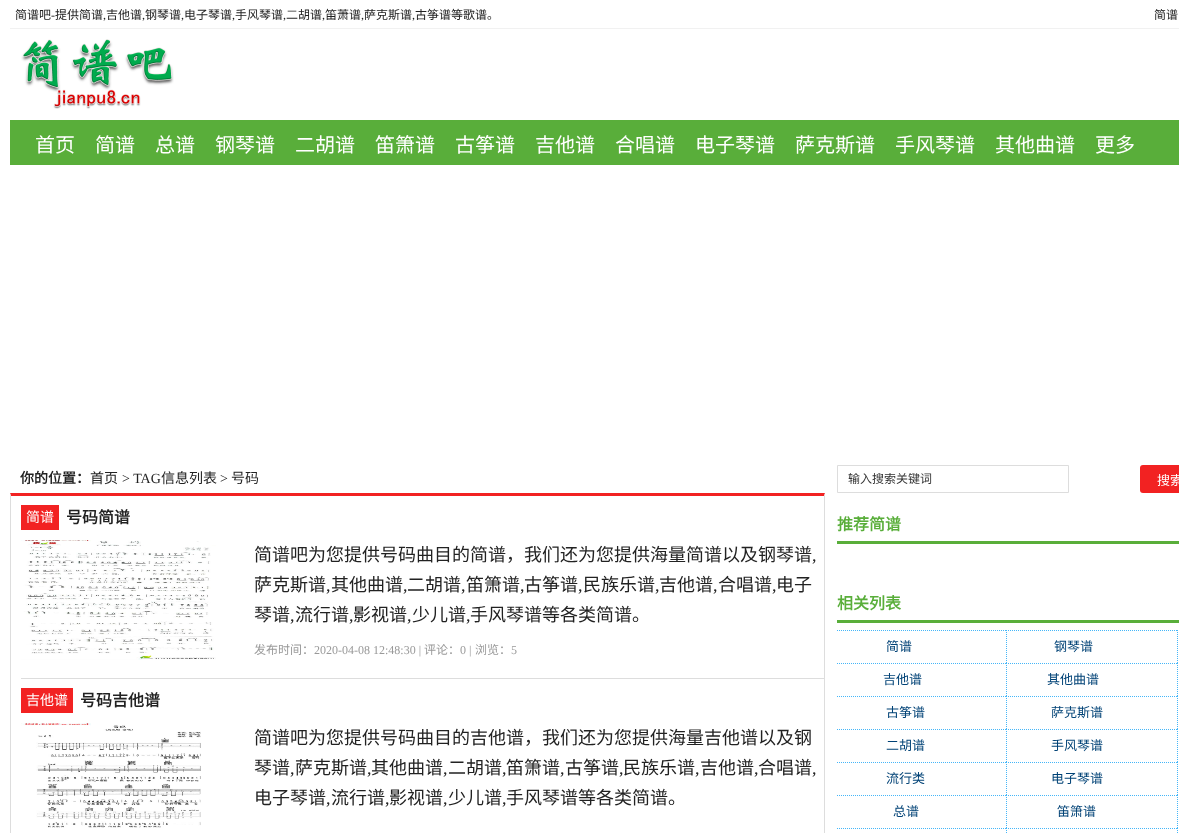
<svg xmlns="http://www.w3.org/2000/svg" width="1179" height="833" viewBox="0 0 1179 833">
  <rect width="100%" height="100%" fill="#fff"/>
  <path d="M10 28h1169v1H10z" fill="#f1f1f1"/>
  <image x="21" y="39" width="153" height="70" href="img/1.png"/>
  <path d="M10 120h1169v45H10z" fill="#59ae3a"/>
  <path d="M10 493H825L824 496H11Z" fill="#f22222"/>
  <path d="M825 493V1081L824 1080V496Z" fill="#ddd"/>
  <path d="M10 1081V493L11 496V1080Z" fill="#ddd"/>
  <path d="M21 678h803v1H21z" fill="#ddd"/>
  <path d="M21 505h38v25H21z" fill="#f22222"/>
  <image x="21" y="540" width="195" height="120" href="img/2.png"/>
  <path d="M21 688h52v25H21z" fill="#f22222"/>
  <image x="21" y="723" width="180" height="105" href="img/3.png"/>
  <path d="M837.5 465.5h231v27H837.5z" fill="none" stroke="#ddd"/>
  <rect x="1140" y="465" width="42" height="28" rx="3" fill="#f22222"/>
  <path d="M837 541h342v3H837z" fill="#59ae3a"/>
  <path d="M837 620h342v3H837z" fill="#59ae3a"/>
  <path d="M837 630.5H1007" fill="none" stroke="#45b6f8" stroke-dasharray="1 1"/>
  <path d="M1006.5 630V663" fill="none" stroke="#45b6f8" stroke-dasharray="1 1"/>
  <path d="M1008 630.5H1178" fill="none" stroke="#45b6f8" stroke-dasharray="1 1"/>
  <path d="M1177.5 630V663" fill="none" stroke="#45b6f8" stroke-dasharray="1 1"/>
  <path d="M837 663.5H1007" fill="none" stroke="#45b6f8" stroke-dasharray="1 1"/>
  <path d="M1006.5 663V696" fill="none" stroke="#45b6f8" stroke-dasharray="1 1"/>
  <path d="M1008 663.5H1178" fill="none" stroke="#45b6f8" stroke-dasharray="1 1"/>
  <path d="M1177.5 663V696" fill="none" stroke="#45b6f8" stroke-dasharray="1 1"/>
  <path d="M837 696.5H1007" fill="none" stroke="#45b6f8" stroke-dasharray="1 1"/>
  <path d="M1006.5 696V729" fill="none" stroke="#45b6f8" stroke-dasharray="1 1"/>
  <path d="M1008 696.5H1178" fill="none" stroke="#45b6f8" stroke-dasharray="1 1"/>
  <path d="M1177.5 696V729" fill="none" stroke="#45b6f8" stroke-dasharray="1 1"/>
  <path d="M837 729.5H1007" fill="none" stroke="#45b6f8" stroke-dasharray="1 1"/>
  <path d="M1006.5 729V762" fill="none" stroke="#45b6f8" stroke-dasharray="1 1"/>
  <path d="M1008 729.5H1178" fill="none" stroke="#45b6f8" stroke-dasharray="1 1"/>
  <path d="M1177.5 729V762" fill="none" stroke="#45b6f8" stroke-dasharray="1 1"/>
  <path d="M837 762.5H1007" fill="none" stroke="#45b6f8" stroke-dasharray="1 1"/>
  <path d="M1006.5 762V795" fill="none" stroke="#45b6f8" stroke-dasharray="1 1"/>
  <path d="M1008 762.5H1178" fill="none" stroke="#45b6f8" stroke-dasharray="1 1"/>
  <path d="M1177.5 762V795" fill="none" stroke="#45b6f8" stroke-dasharray="1 1"/>
  <path d="M837 795.5H1007" fill="none" stroke="#45b6f8" stroke-dasharray="1 1"/>
  <path d="M1006.5 795V828" fill="none" stroke="#45b6f8" stroke-dasharray="1 1"/>
  <path d="M1008 795.5H1178" fill="none" stroke="#45b6f8" stroke-dasharray="1 1"/>
  <path d="M1177.5 795V828" fill="none" stroke="#45b6f8" stroke-dasharray="1 1"/>
  <path d="M837 828.5H1007" fill="none" stroke="#45b6f8" stroke-dasharray="1 1"/>
  <path d="M1006.5 828V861" fill="none" stroke="#45b6f8" stroke-dasharray="1 1"/>
  <path d="M1008 828.5H1178" fill="none" stroke="#45b6f8" stroke-dasharray="1 1"/>
  <path d="M1177.5 828V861" fill="none" stroke="#45b6f8" stroke-dasharray="1 1"/>
  <text x="15" y="19" font-family="Noto Sans CJK SC" font-size="12" fill="#222">简谱吧</text>
  <text x="51" y="19" font-family="Liberation Serif" font-size="12" fill="#222">-</text>
  <g font-family="Noto Sans CJK SC" font-size="12" fill="#222">
    <text x="55" y="19">提供简谱</text>
    <text x="106" y="19">吉他谱</text>
    <text x="145" y="19">钢琴谱</text>
    <text x="184" y="19">电子琴谱</text>
    <text x="235" y="19">手风琴谱</text>
    <text x="286" y="19">二胡谱</text>
    <text x="325" y="19">笛萧谱</text>
    <text x="364" y="19">萨克斯谱</text>
    <text x="415" y="19">古筝谱等歌谱。</text>
    <text x="1154" y="19">简谱</text>
  </g>
  <g font-family="Liberation Serif" font-size="12" fill="#222">
    <text x="103" y="19">,</text>
    <text x="142" y="19">,</text>
    <text x="181" y="19">,</text>
    <text x="232" y="19">,</text>
    <text x="283" y="19">,</text>
    <text x="322" y="19">,</text>
    <text x="361" y="19">,</text>
    <text x="412" y="19">,</text>
  </g>
  <g font-family="Noto Sans CJK SC" font-size="20" fill="#fff">
    <text x="35" y="152">首页</text>
    <text x="95" y="152">简谱</text>
    <text x="155" y="152">总谱</text>
    <text x="215" y="152">钢琴谱</text>
    <text x="295" y="152">二胡谱</text>
    <text x="375" y="152">笛箫谱</text>
    <text x="455" y="152">古筝谱</text>
    <text x="535" y="152">吉他谱</text>
    <text x="615" y="152">合唱谱</text>
    <text x="695" y="152">电子琴谱</text>
    <text x="795" y="152">萨克斯谱</text>
    <text x="895" y="152">手风琴谱</text>
    <text x="995" y="152">其他曲谱</text>
    <text x="1095" y="152">更多</text>
  </g>
  <text x="20" y="483" font-family="Noto Sans CJK SC" font-size="14" font-weight="bold" fill="#222">你的位置：</text>
  <text x="90" y="483" font-family="Noto Sans CJK SC" font-size="14" fill="#222">首页</text>
  <text x="122" y="483" font-family="Liberation Serif" font-size="14" fill="#222">&gt; TAG</text>
  <text x="161" y="483" font-family="Noto Sans CJK SC" font-size="14" fill="#222">信息列表</text>
  <text x="220" y="483" font-family="Liberation Serif" font-size="14" fill="#222">&gt;</text>
  <text x="231" y="483" font-family="Noto Sans CJK SC" font-size="14" fill="#222">号码</text>
  <text x="26" y="522" font-family="Noto Sans CJK SC" font-size="14" fill="#fff">简谱</text>
  <text x="66" y="523" font-family="Noto Sans CJK SC" font-size="16" font-weight="bold" fill="#222">号码简谱</text>
  <text x="254" y="561" font-family="Noto Sans CJK SC" font-size="18" fill="#222">简谱吧为您提供号码曲目的简谱，我们还为您提供海量简谱以及钢琴谱</text>
  <text x="812" y="561" font-family="Liberation Serif" font-size="18" fill="#222">,</text>
  <text x="254" y="591" font-family="Noto Sans CJK SC" font-size="18" fill="#222">萨克斯谱</text>
  <text x="326" y="591" font-family="Liberation Serif" font-size="18" fill="#222">,</text>
  <text x="331" y="591" font-family="Noto Sans CJK SC" font-size="18" fill="#222">其他曲谱</text>
  <text x="403" y="591" font-family="Liberation Serif" font-size="18" fill="#222">,</text>
  <text x="407" y="591" font-family="Noto Sans CJK SC" font-size="18" fill="#222">二胡谱</text>
  <text x="461" y="591" font-family="Liberation Serif" font-size="18" fill="#222">,</text>
  <text x="466" y="591" font-family="Noto Sans CJK SC" font-size="18" fill="#222">笛箫谱</text>
  <text x="520" y="591" font-family="Liberation Serif" font-size="18" fill="#222">,</text>
  <text x="524" y="591" font-family="Noto Sans CJK SC" font-size="18" fill="#222">古筝谱</text>
  <text x="578" y="591" font-family="Liberation Serif" font-size="18" fill="#222">,</text>
  <text x="583" y="591" font-family="Noto Sans CJK SC" font-size="18" fill="#222">民族乐谱</text>
  <text x="655" y="591" font-family="Liberation Serif" font-size="18" fill="#222">,</text>
  <text x="659" y="591" font-family="Noto Sans CJK SC" font-size="18" fill="#222">吉他谱</text>
  <text x="713" y="591" font-family="Liberation Serif" font-size="18" fill="#222">,</text>
  <text x="718" y="591" font-family="Noto Sans CJK SC" font-size="18" fill="#222">合唱谱</text>
  <text x="772" y="591" font-family="Liberation Serif" font-size="18" fill="#222">,</text>
  <g font-family="Noto Sans CJK SC" font-size="18" fill="#222">
    <text x="776" y="591">电子</text>
    <text x="254" y="621">琴谱</text>
  </g>
  <text x="290" y="621" font-family="Liberation Serif" font-size="18" fill="#222">,</text>
  <text x="295" y="621" font-family="Noto Sans CJK SC" font-size="18" fill="#222">流行谱</text>
  <text x="349" y="621" font-family="Liberation Serif" font-size="18" fill="#222">,</text>
  <text x="353" y="621" font-family="Noto Sans CJK SC" font-size="18" fill="#222">影视谱</text>
  <text x="407" y="621" font-family="Liberation Serif" font-size="18" fill="#222">,</text>
  <text x="412" y="621" font-family="Noto Sans CJK SC" font-size="18" fill="#222">少儿谱</text>
  <text x="466" y="621" font-family="Liberation Serif" font-size="18" fill="#222">,</text>
  <text x="470" y="621" font-family="Noto Sans CJK SC" font-size="18" fill="#222">手风琴谱等各类简谱。</text>
  <text x="254" y="654" font-family="Noto Sans CJK SC" font-size="12" fill="#999">发布时间：</text>
  <text x="314" y="654" font-family="Liberation Serif" font-size="12" fill="#999">2020-04-08 12:48:30 |</text>
  <text x="424" y="654" font-family="Noto Sans CJK SC" font-size="12" fill="#999">评论：</text>
  <text x="460" y="654" font-family="Liberation Serif" font-size="12" fill="#999">0 |</text>
  <text x="475" y="654" font-family="Noto Sans CJK SC" font-size="12" fill="#999">浏览：</text>
  <text x="511" y="654" font-family="Liberation Serif" font-size="12" fill="#999">5</text>
  <text x="26" y="705" font-family="Noto Sans CJK SC" font-size="14" fill="#fff">吉他谱</text>
  <text x="80" y="706" font-family="Noto Sans CJK SC" font-size="16" font-weight="bold" fill="#222">号码吉他谱</text>
  <g font-family="Noto Sans CJK SC" font-size="18" fill="#222">
    <text x="254" y="744">简谱吧为您提供号码曲目的吉他谱，我们还为您提供海量吉他谱以及钢</text>
    <text x="254" y="774">琴谱</text>
  </g>
  <text x="290" y="774" font-family="Liberation Serif" font-size="18" fill="#222">,</text>
  <text x="295" y="774" font-family="Noto Sans CJK SC" font-size="18" fill="#222">萨克斯谱</text>
  <text x="367" y="774" font-family="Liberation Serif" font-size="18" fill="#222">,</text>
  <text x="371" y="774" font-family="Noto Sans CJK SC" font-size="18" fill="#222">其他曲谱</text>
  <text x="443" y="774" font-family="Liberation Serif" font-size="18" fill="#222">,</text>
  <text x="448" y="774" font-family="Noto Sans CJK SC" font-size="18" fill="#222">二胡谱</text>
  <text x="502" y="774" font-family="Liberation Serif" font-size="18" fill="#222">,</text>
  <text x="506" y="774" font-family="Noto Sans CJK SC" font-size="18" fill="#222">笛箫谱</text>
  <text x="560" y="774" font-family="Liberation Serif" font-size="18" fill="#222">,</text>
  <text x="565" y="774" font-family="Noto Sans CJK SC" font-size="18" fill="#222">古筝谱</text>
  <text x="619" y="774" font-family="Liberation Serif" font-size="18" fill="#222">,</text>
  <text x="623" y="774" font-family="Noto Sans CJK SC" font-size="18" fill="#222">民族乐谱</text>
  <text x="695" y="774" font-family="Liberation Serif" font-size="18" fill="#222">,</text>
  <text x="700" y="774" font-family="Noto Sans CJK SC" font-size="18" fill="#222">吉他谱</text>
  <text x="754" y="774" font-family="Liberation Serif" font-size="18" fill="#222">,</text>
  <text x="758" y="774" font-family="Noto Sans CJK SC" font-size="18" fill="#222">合唱谱</text>
  <text x="812" y="774" font-family="Liberation Serif" font-size="18" fill="#222">,</text>
  <text x="254" y="804" font-family="Noto Sans CJK SC" font-size="18" fill="#222">电子琴谱</text>
  <text x="326" y="804" font-family="Liberation Serif" font-size="18" fill="#222">,</text>
  <text x="331" y="804" font-family="Noto Sans CJK SC" font-size="18" fill="#222">流行谱</text>
  <text x="385" y="804" font-family="Liberation Serif" font-size="18" fill="#222">,</text>
  <text x="389" y="804" font-family="Noto Sans CJK SC" font-size="18" fill="#222">影视谱</text>
  <text x="443" y="804" font-family="Liberation Serif" font-size="18" fill="#222">,</text>
  <text x="448" y="804" font-family="Noto Sans CJK SC" font-size="18" fill="#222">少儿谱</text>
  <text x="502" y="804" font-family="Liberation Serif" font-size="18" fill="#222">,</text>
  <text x="506" y="804" font-family="Noto Sans CJK SC" font-size="18" fill="#222">手风琴谱等各类简谱。</text>
  <text x="848" y="483" font-family="Noto Sans CJK SC" font-size="12" fill="#333">输入搜索关键词</text>
  <text x="1157" y="485" font-family="Noto Sans CJK SC" font-size="13" fill="#fff">搜索</text>
  <g font-family="Noto Sans CJK SC" font-size="16" font-weight="bold" fill="#59ae3a">
    <text x="837" y="530">推荐简谱</text>
    <text x="837" y="609">相关列表</text>
  </g>
  <g font-family="Noto Sans CJK SC" font-size="13" fill="#004276">
    <text x="886" y="651">简谱</text>
    <text x="1054" y="651">钢琴谱</text>
    <text x="883" y="684">吉他谱</text>
    <text x="1047" y="684">其他曲谱</text>
    <text x="886" y="717">古筝谱</text>
    <text x="1051" y="717">萨克斯谱</text>
    <text x="886" y="750">二胡谱</text>
    <text x="1051" y="750">手风琴谱</text>
    <text x="886" y="783">流行类</text>
    <text x="1051" y="783">电子琴谱</text>
    <text x="893" y="816">总谱</text>
    <text x="1057" y="816">笛箫谱</text>
  </g>
</svg>
